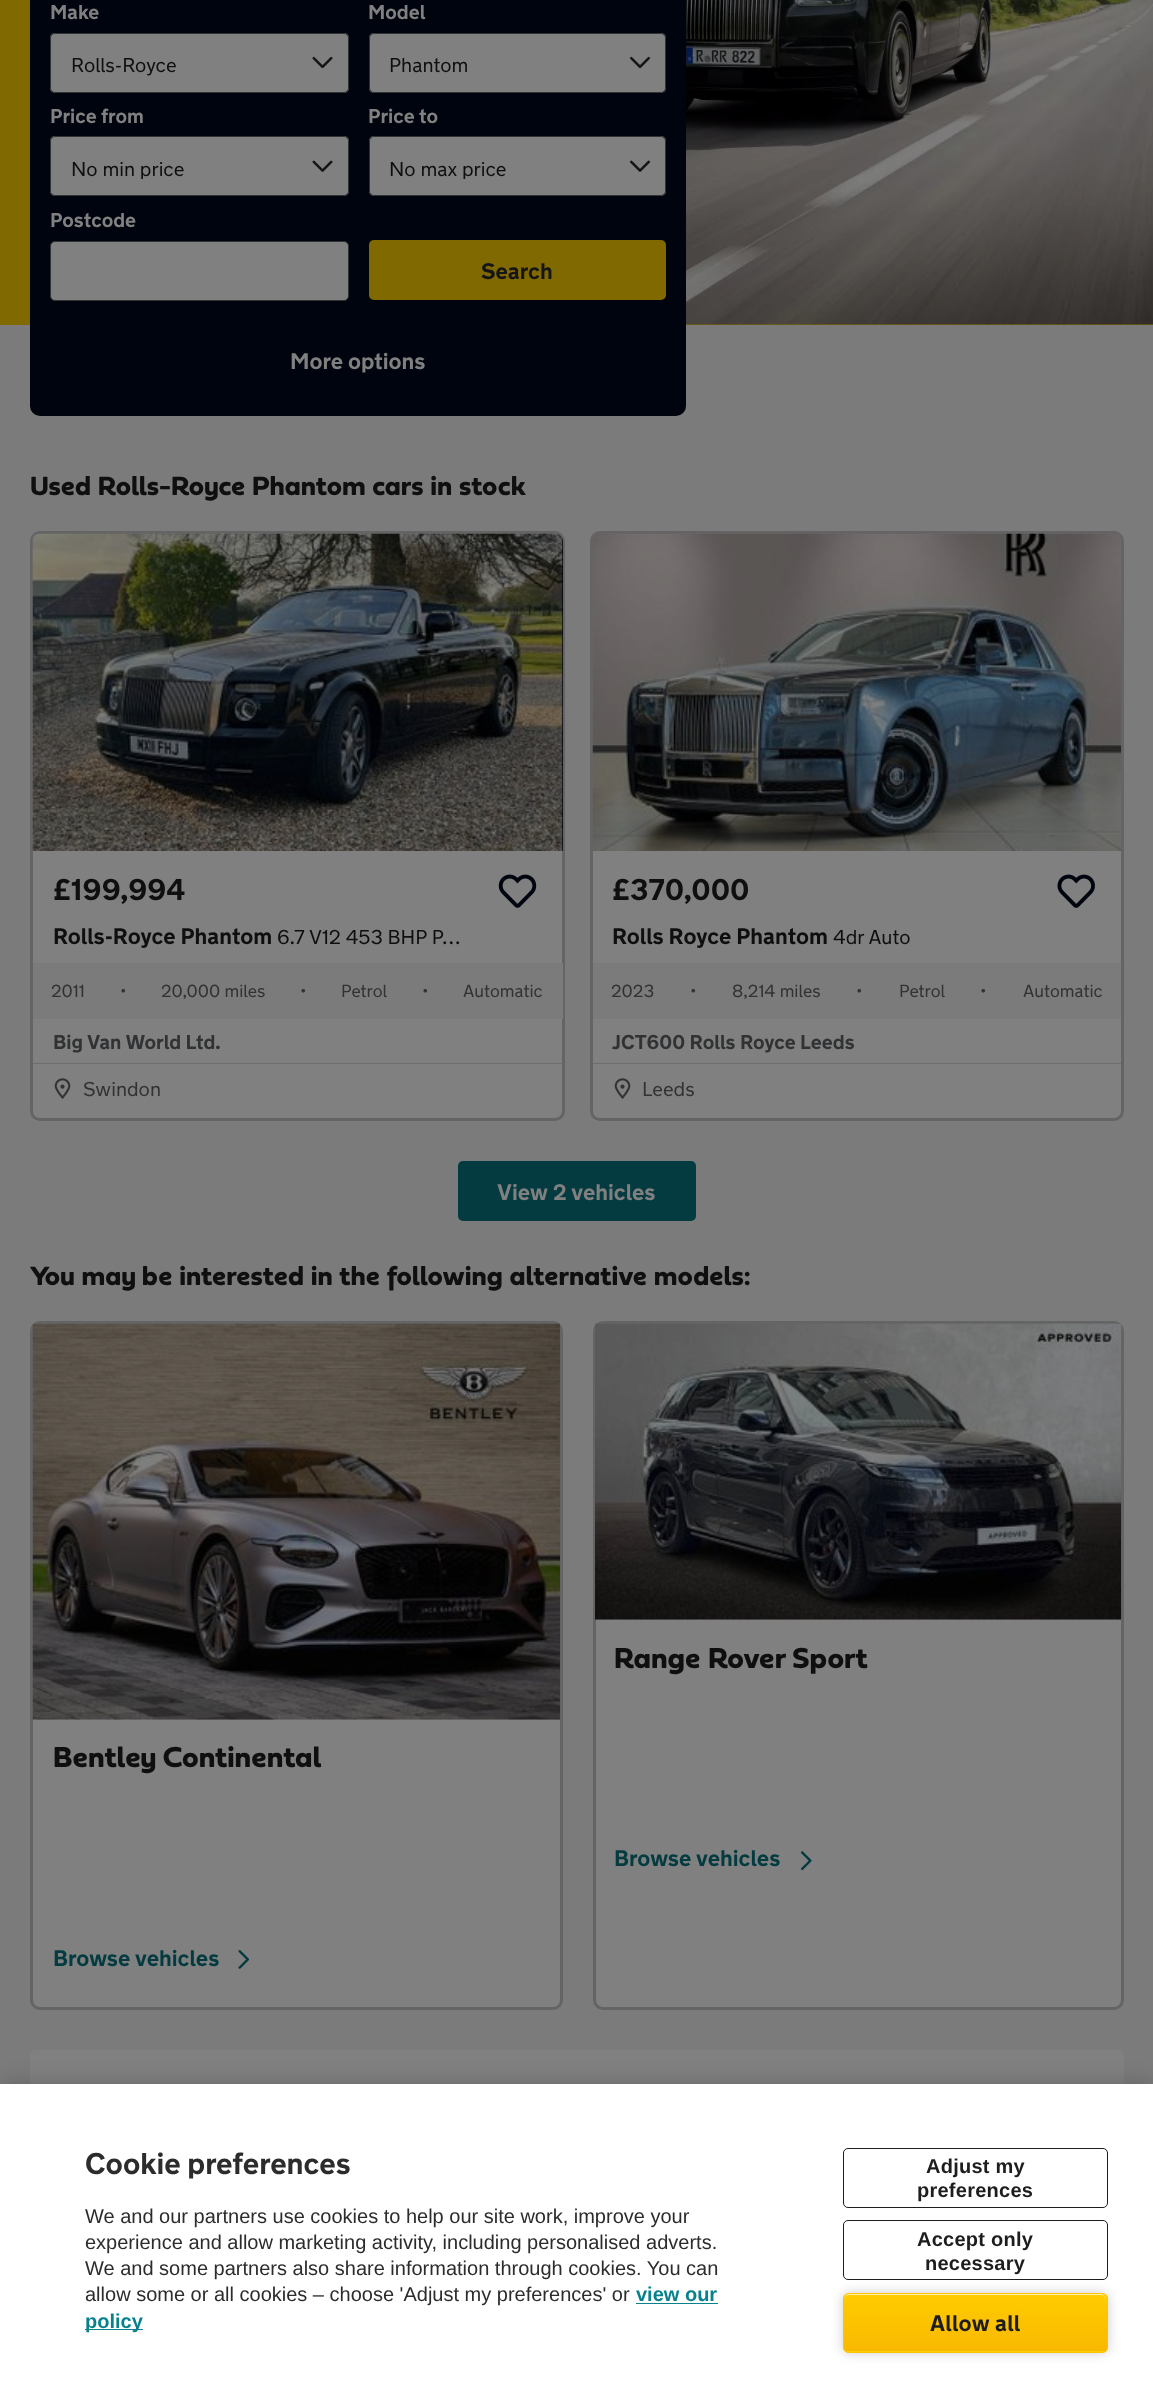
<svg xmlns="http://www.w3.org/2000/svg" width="1153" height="2408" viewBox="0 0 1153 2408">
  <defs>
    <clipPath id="clip1"><rect x="843" y="2293" width="265" height="60" rx="6"/></clipPath>
    <linearGradient id="g1" gradientUnits="userSpaceOnUse" x1="975" y1="2294" x2="975" y2="2352"><stop offset="0" stop-color="#fc0"/><stop offset="1" stop-color="#f9b800"/></linearGradient>
    <linearGradient id="g2" gradientUnits="userSpaceOnUse" x1="975" y1="2352" x2="975" y2="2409"><stop offset="0" stop-color="#fc0"/><stop offset="1" stop-color="#f9b800"/></linearGradient>
  </defs>
  <rect width="100%" height="100%" fill="#7b7b7b"/>
  <path d="M0 0h1153v325H0z" fill="#806a00"/>
  <rect x="30" y="-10" width="656" height="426" rx="10" fill="#00040e"/>
  <rect x="50" y="33" width="299" height="60" rx="5" fill="#808080"/>
  <image x="312" y="56" width="21" height="13" href="img/1.png"/>
  <rect x="50.5" y="33.5" width="298" height="59" rx="4.5" fill="none" stroke="#313233"/>
  <rect x="369" y="33" width="297" height="60" rx="5" fill="#808080"/>
  <image x="630" y="56" width="20" height="13" href="img/2.png"/>
  <rect x="369.5" y="33.5" width="296" height="59" rx="4.5" fill="none" stroke="#313233"/>
  <rect x="50" y="136" width="299" height="60" rx="5" fill="#808080"/>
  <image x="312" y="160" width="21" height="12" href="img/3.png"/>
  <rect x="50.5" y="136.5" width="298" height="59" rx="4.5" fill="none" stroke="#313233"/>
  <rect x="369" y="136" width="297" height="60" rx="5" fill="#808080"/>
  <image x="630" y="160" width="20" height="12" href="img/4.png"/>
  <rect x="369.5" y="136.5" width="296" height="59" rx="4.5" fill="none" stroke="#313233"/>
  <rect x="50.5" y="241.5" width="298" height="59" rx="4.5" fill="#808080" stroke="#313233"/>
  <rect x="369" y="240" width="297" height="60" rx="5" fill="#806a00"/>
  <image x="686" y="0" width="467" height="325" href="img/5.png"/>
  <rect x="31.5" y="532.5" width="532" height="587" rx="8.5" fill="#808080" stroke="#646465" stroke-width="3"/>
  <path d="M41 534H555C559.5 534 563 537.5 563 542V851H33V542C33 537.5 36.5 534 41 534Z" fill="#00040e"/>
  <image x="32" y="533" width="531" height="318" href="img/6.png"/>
  <image x="498" y="874" width="39" height="34" href="img/7.png"/>
  <path d="M33 963h530v56H33z" fill="#7b7b7b"/>
  <path d="M33 1063h530v1H33z" fill="#6d6d6d"/>
  <image x="54" y="1078" width="17" height="21" href="img/8.png"/>
  <rect x="591.5" y="532.5" width="531" height="587" rx="8.5" fill="#808080" stroke="#646465" stroke-width="3"/>
  <image x="592" y="533" width="530" height="318" href="img/9.png"/>
  <image x="1057" y="874" width="38" height="34" href="img/10.png"/>
  <path d="M593 963h528v56H593z" fill="#7b7b7b"/>
  <path d="M593 1063h528v1H593z" fill="#6d6d6d"/>
  <image x="614" y="1078" width="17" height="21" href="img/8.png"/>
  <rect x="458" y="1161" width="238" height="60" rx="5" fill="#033b40"/>
  <rect x="31.5" y="1322.5" width="530" height="686" rx="8.5" fill="#808080" stroke="#646465" stroke-width="3"/>
  <image x="32" y="1323" width="528" height="397" href="img/11.png"/>
  <image x="238" y="1950" width="11" height="19" href="img/12.png"/>
  <rect x="594.5" y="1322.5" width="528" height="686" rx="8.5" fill="#808080" stroke="#646465" stroke-width="3"/>
  <image x="595" y="1323" width="527" height="297" href="img/13.png"/>
  <image x="801" y="1851" width="11" height="20" href="img/14.png"/>
  <rect x="30" y="2050" width="1094" height="240" rx="5" fill="#808080"/>
  <path d="M0 2084h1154v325H0z" fill="#00000033" filter="blur(11px)"/>
  <path d="M0 2084h1153v324H0z" fill="#fff"/>
  <path d="M636 2303h82v1H636z" fill="#07818c"/>
  <path d="M85 2329h58v1H85z" fill="#07818c"/>
  <rect x="843.5" y="2148.5" width="264" height="59" rx="4.5" fill="none" stroke="#1d1d1d"/>
  <rect x="843.5" y="2220.5" width="264" height="59" rx="4.5" fill="none" stroke="#1d1d1d"/>
  <rect x="843" y="2293" width="265" height="60" rx="6" fill="#00000033" filter="blur(6px)"/>
  <g clip-path="url(#clip1)">
    <path d="M843 2294h265v57H843z" fill="url(#g1)"/>
    <path d="M843 2351h265v2H843z" fill="url(#g2)"/>
  </g>
  <path d="M849 2295H1101C1104 2295 1106 2298 1106 2300C1106 2297 1104 2294 1101 2294H849C846 2294 844 2297 844 2300C844 2298 846 2295 849 2295Z" fill="#fff0b3"/>
  <rect x="843.5" y="2293.5" width="264" height="59" rx="5.5" fill="none" stroke="#ffc400"/>
  <text x="50" y="19" font-family="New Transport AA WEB" font-size="20" font-weight="bold" fill="#808080">Make</text>
  <text x="71" y="72" font-family="New Transport AA WEB" font-size="20" fill="#0f0f0f">Rolls-Royce</text>
  <text x="368" y="19" font-family="New Transport AA WEB" font-size="20" font-weight="bold" fill="#808080">Model</text>
  <text x="389" y="72" font-family="New Transport AA WEB" font-size="20" fill="#0f0f0f">Phantom</text>
  <text x="50" y="123" font-family="New Transport AA WEB" font-size="20" font-weight="bold" fill="#808080">Price from</text>
  <text x="71" y="176" font-family="New Transport AA WEB" font-size="20" fill="#0f0f0f">No min price</text>
  <text x="368" y="123" font-family="New Transport AA WEB" font-size="20" font-weight="bold" fill="#808080">Price to</text>
  <text x="389" y="176" font-family="New Transport AA WEB" font-size="20" fill="#0f0f0f">No max price</text>
  <text x="50" y="227" font-family="New Transport AA WEB" font-size="20" font-weight="bold" fill="#808080">Postcode</text>
  <text x="481" y="279" font-family="New Transport AA WEB" font-size="22.5" font-weight="bold" fill="#161515">Search</text>
  <text x="290" y="369" font-family="New Transport AA WEB" font-size="22.5" font-weight="bold" fill="#808080">More options</text>
  <text x="30" y="495" font-family="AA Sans" font-size="27.5" font-weight="bold" fill="#0f0f0f">Used Rolls-Royce Phantom cars in stock</text>
  <text x="53" y="900" font-family="New Transport AA WEB" font-size="30" font-weight="bold" fill="#0f0f0f">£199,994</text>
  <text x="53" y="944" font-family="New Transport AA WEB" font-size="22.5" font-weight="bold" fill="#0f0f0f">Rolls-Royce Phantom</text>
  <text x="277" y="944" font-family="New Transport AA WEB" font-size="20" fill="#0f0f0f">6.7 V12 453 BHP P…</text>
  <g font-family="New Transport AA WEB" font-size="17.5" fill="#313233">
    <text x="51" y="997">2011</text>
    <text x="120" y="997">•</text>
    <text x="161" y="997">20,000 miles</text>
    <text x="300" y="997">•</text>
    <text x="341" y="997">Petrol</text>
    <text x="422" y="997">•</text>
    <text x="463" y="997">Automatic</text>
  </g>
  <text x="53" y="1049" font-family="New Transport AA WEB" font-size="20" font-weight="bold" fill="#313233">Big Van World Ltd.</text>
  <text x="83" y="1096" font-family="New Transport AA WEB" font-size="20" fill="#313233">Swindon</text>
  <text x="612" y="900" font-family="New Transport AA WEB" font-size="30" font-weight="bold" fill="#0f0f0f">£370,000</text>
  <text x="612" y="944" font-family="New Transport AA WEB" font-size="22.5" font-weight="bold" fill="#0f0f0f">Rolls Royce Phantom</text>
  <text x="833" y="944" font-family="New Transport AA WEB" font-size="20" fill="#0f0f0f">4dr Auto</text>
  <g font-family="New Transport AA WEB" font-size="17.5" fill="#313233">
    <text x="611" y="997">2023</text>
    <text x="690" y="997">•</text>
    <text x="732" y="997">8,214 miles</text>
    <text x="856" y="997">•</text>
    <text x="899" y="997">Petrol</text>
    <text x="980" y="997">•</text>
    <text x="1023" y="997">Automatic</text>
  </g>
  <text x="612" y="1049" font-family="New Transport AA WEB" font-size="20" font-weight="bold" fill="#313233">JCT600 Rolls Royce Leeds</text>
  <text x="642" y="1096" font-family="New Transport AA WEB" font-size="20" fill="#313233">Leeds</text>
  <text x="497" y="1200" font-family="New Transport AA WEB" font-size="22.5" font-weight="bold" fill="#808080">View 2 vehicles</text>
  <text x="30" y="1285" font-family="AA Sans" font-size="27.5" font-weight="bold" fill="#0f0f0f">You may be interested in the following alternative models:</text>
  <text x="53" y="1767" font-family="AA Sans" font-size="30" font-weight="bold" fill="#0f0f0f">Bentley Continental</text>
  <text x="53" y="1966" font-family="New Transport AA WEB" font-size="22.5" font-weight="bold" fill="#033b40">Browse vehicles</text>
  <text x="614" y="1668" font-family="AA Sans" font-size="30" font-weight="bold" fill="#0f0f0f">Range Rover Sport</text>
  <text x="614" y="1866" font-family="New Transport AA WEB" font-size="22.5" font-weight="bold" fill="#033b40">Browse vehicles</text>
  <text x="85" y="2174" font-family="New Transport AA WEB" font-size="30" font-weight="bold" fill="#2c2c2c">Cookie preferences</text>
  <g font-family="Liberation Sans" font-size="20" fill="#2c2c2c">
    <text x="85" y="2223">We and our partners use cookies to help our site work, improve your</text>
    <text x="85" y="2249">experience and allow marketing activity, including personalised adverts.</text>
    <text x="85" y="2275">We and some partners also share information through cookies. You can</text>
    <text x="85" y="2301">allow some or all cookies – choose 'Adjust my preferences' or</text>
  </g>
  <g font-family="Liberation Sans" font-size="20" font-weight="bold" fill="#07818c">
    <text x="636" y="2301">view our</text>
    <text x="85" y="2328">policy</text>
  </g>
  <g font-family="Liberation Sans" font-size="20" font-weight="bold" letter-spacing="0.25" fill="#1d1d1d">
    <text x="926" y="2173">Adjust my</text>
    <text x="917" y="2197">preferences</text>
    <text x="917" y="2246">Accept only</text>
    <text x="925" y="2270">necessary</text>
  </g>
  <text x="930" y="2331" font-family="New Transport AA WEB" font-size="22.5" font-weight="bold" letter-spacing="0.25" fill="#1d1d1d">Allow all</text>
</svg>
